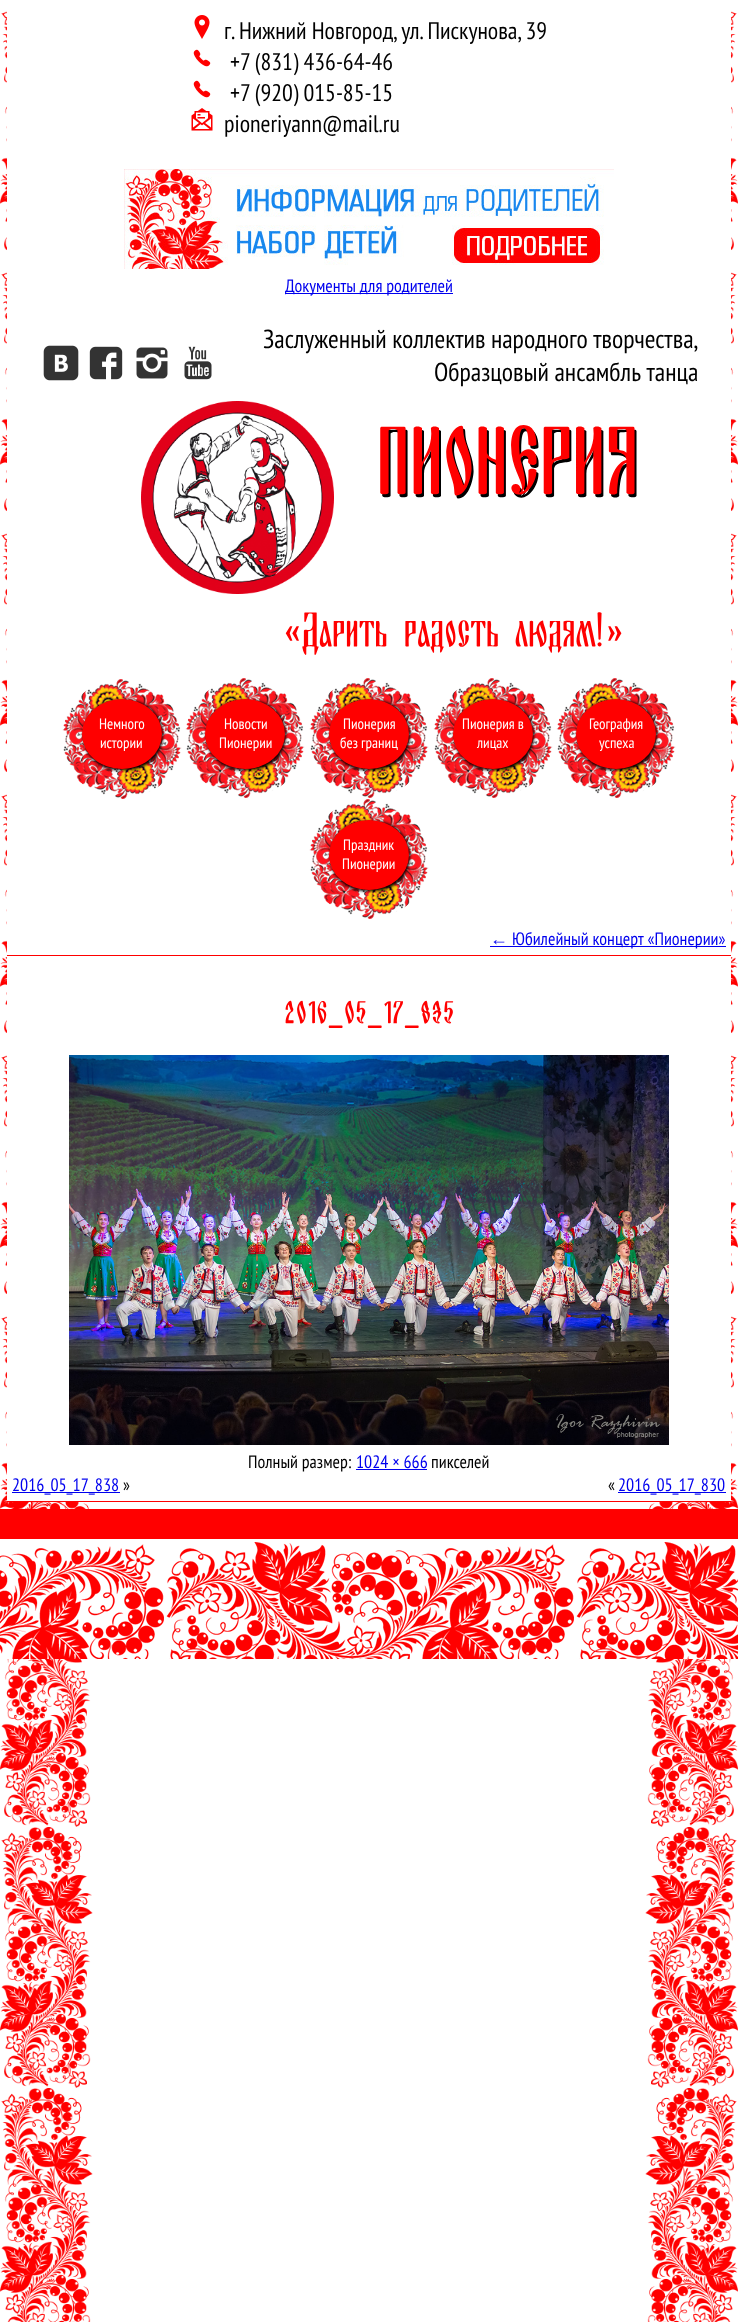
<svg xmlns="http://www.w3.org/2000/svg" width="738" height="2322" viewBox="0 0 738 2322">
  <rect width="100%" height="100%" fill="#fff"/>
  <image x="0" y="0" width="738" height="2322" href="img/1.png"/>
  <path d="M7 0h724v1501H7z" fill="#fff"/>
  <image x="194" y="15" width="16" height="24" href="img/2.png"/>
  <image x="193" y="49" width="18" height="18" href="img/3.png"/>
  <image x="193" y="80" width="18" height="18" href="img/3.png"/>
  <image x="191" y="108" width="22" height="23" href="img/4.png"/>
  <image x="124" y="169" width="490" height="100" href="img/5.png"/>
  <path d="M285 293h168v1H285z" fill="#00e"/>
  <image x="43" y="345" width="36" height="36" href="img/6.png"/>
  <image x="89" y="346" width="34" height="34" href="img/7.png"/>
  <image x="136" y="347" width="32" height="32" href="img/8.png"/>
  <image x="184" y="346" width="28" height="34" href="img/9.png"/>
  <image x="141" y="401" width="193" height="193" href="img/10.png"/>
  <image x="380" y="425" width="257" height="74" href="img/11.png"/>
  <image x="285" y="612" width="102" height="43" href="img/12.png"/>
  <image x="405" y="620" width="93" height="33" href="img/13.png"/>
  <image x="515" y="612" width="107" height="41" href="img/14.png"/>
  <image x="62" y="679" width="120" height="120" href="img/15.png"/>
  <rect x="83" y="700" width="80" height="70" rx="35" fill="#000" filter="blur(1.5px)"/>
  <ellipse cx="122" cy="734" rx="40" ry="35" fill="#f00"/>
  <image x="185" y="678" width="120" height="120" href="img/16.png"/>
  <rect x="206" y="700" width="80" height="70" rx="35" fill="#000" filter="blur(1.5px)"/>
  <ellipse cx="245" cy="734" rx="40" ry="35" fill="#f00"/>
  <image x="309" y="678" width="120" height="120" href="img/17.png"/>
  <rect x="330" y="700" width="80" height="70" rx="35" fill="#000" filter="blur(1.5px)"/>
  <ellipse cx="369" cy="734" rx="40" ry="35" fill="#f00"/>
  <image x="433" y="678" width="120" height="120" href="img/18.png"/>
  <rect x="454" y="700" width="80" height="70" rx="35" fill="#000" filter="blur(1.5px)"/>
  <ellipse cx="493" cy="734" rx="40" ry="35" fill="#f00"/>
  <image x="556" y="678" width="120" height="120" href="img/17.png"/>
  <rect x="577" y="700" width="80" height="70" rx="35" fill="#000" filter="blur(1.5px)"/>
  <ellipse cx="616" cy="734" rx="40" ry="35" fill="#f00"/>
  <image x="309" y="799" width="120" height="120" href="img/19.png"/>
  <rect x="330" y="821" width="80" height="70" rx="35" fill="#000" filter="blur(1.5px)"/>
  <ellipse cx="369" cy="855" rx="40" ry="35" fill="#f00"/>
  <path d="M7 955h724v1H7z" fill="#f00"/>
  <path d="M490 946h236v1H490z" fill="#00e"/>
  <path d="M7 1501h724v1H7z" fill="#f00"/>
  <image x="285" y="1000" width="169" height="28" href="img/20.png"/>
  <image x="69" y="1055" width="600" height="390" href="img/21.png"/>
  <path d="M356 1469h71v1H356z" fill="#00e"/>
  <path d="M12 1492h108v1H12z" fill="#00e"/>
  <path d="M618 1492h108v1H618z" fill="#00e"/>
  <image x="0" y="1539" width="738" height="120" href="img/22.png"/>
  <path d="M0 1509h738v30H0z" fill="#f00"/>
  <g font-family="PT Sans Narrow" font-size="24" fill="#000">
    <text x="224" y="39">г. Нижний Новгород, ул. Пискунова, 39</text>
    <text x="230" y="70">+7 (831) 436-64-46</text>
    <text x="230" y="101">+7 (920) 015-85-15</text>
    <text x="224" y="132">pioneriyann@mail.ru</text>
  </g>
  <text x="285" y="292" font-family="PT Sans Narrow" font-size="18" fill="#00e">Документы для родителей</text>
  <g font-family="PT Sans Narrow" font-size="26" fill="#000">
    <text x="263" y="348">Заслуженный коллектив народного творчества,</text>
    <text x="434" y="381">Образцовый ансамбль танца</text>
  </g>
  <g font-family="PT Sans Narrow" font-size="15" fill="#fff">
    <text x="99" y="729">Немного</text>
    <text x="100" y="748">истории</text>
    <text x="224" y="729">Новости</text>
    <text x="219" y="748">Пионерии</text>
    <text x="343" y="729">Пионерия</text>
    <text x="340" y="748">без границ</text>
    <text x="462" y="729">Пионерия в</text>
    <text x="477" y="748">лицах</text>
    <text x="589" y="729">География</text>
    <text x="599" y="748">успеха</text>
    <text x="343" y="850">Праздник</text>
    <text x="342" y="869">Пионерии</text>
  </g>
  <text x="490" y="945" font-family="Liberation Sans" font-size="18" fill="#00e">←</text>
  <text x="512" y="945" font-family="PT Sans Narrow" font-size="18" fill="#00e">Юбилейный концерт «Пионерии»</text>
  <text x="248" y="1468" font-family="PT Sans Narrow" font-size="18" fill="#000">Полный размер:</text>
  <text x="356" y="1468" font-family="PT Sans Narrow" font-size="18" fill="#00e">1024 × 666</text>
  <text x="431" y="1468" font-family="PT Sans Narrow" font-size="18" fill="#000">пикселей</text>
  <text x="12" y="1491" font-family="PT Sans Narrow" font-size="18" fill="#00e">2016_05_17_838</text>
  <g font-family="PT Sans Narrow" font-size="18" fill="#000">
    <text x="123" y="1491">»</text>
    <text x="608" y="1491">«</text>
  </g>
  <text x="618" y="1491" font-family="PT Sans Narrow" font-size="18" fill="#00e">2016_05_17_830</text>
</svg>
